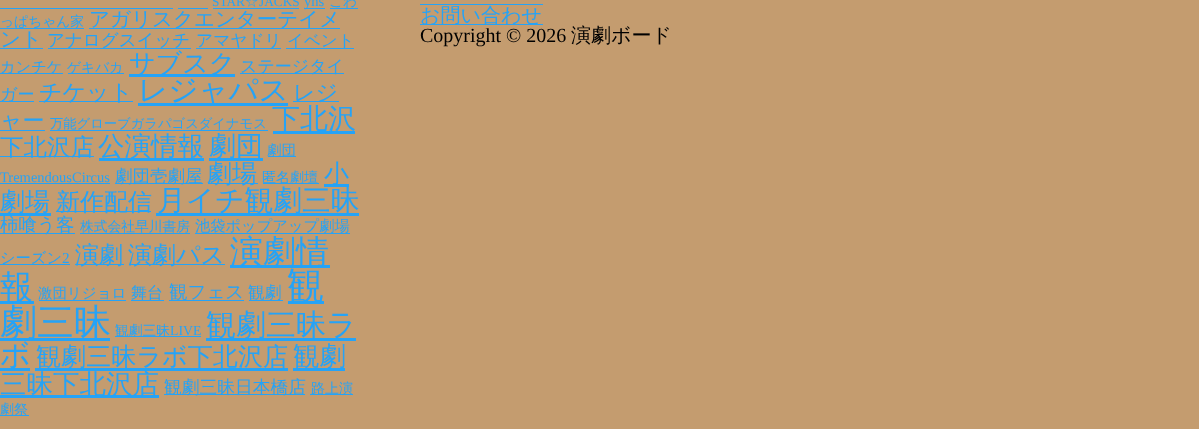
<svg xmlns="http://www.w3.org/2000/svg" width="1199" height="429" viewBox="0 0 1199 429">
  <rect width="100%" height="100%" fill="#c49c6f"/>
  <path d="M213 8h86v1H213z" fill="#25a3f7"/>
  <path d="M304 8h21v1H304z" fill="#25a3f7"/>
  <path d="M330 8h28v1H330z" fill="#25a3f7"/>
  <path d="M0 8h173v1H0z" fill="#25a3f7"/>
  <path d="M178 8h30v1H178z" fill="#25a3f7"/>
  <path d="M0 28h84v1H0z" fill="#25a3f7"/>
  <path d="M89 28h251v1H89z" fill="#25a3f7"/>
  <path d="M0 48h43v1H0z" fill="#25a3f7"/>
  <path d="M48 48h143v1H48z" fill="#25a3f7"/>
  <path d="M196 48h85v1H196z" fill="#25a3f7"/>
  <path d="M286 48h68v1H286z" fill="#25a3f7"/>
  <path d="M0 73h63v1H0z" fill="#25a3f7"/>
  <path d="M68 73h56v1H68z" fill="#25a3f7"/>
  <path d="M129 74h106v3H129z" fill="#25a3f7"/>
  <path d="M240 73h104v1H240z" fill="#25a3f7"/>
  <path d="M0 101h34v1H0z" fill="#25a3f7"/>
  <path d="M39 101h94v1H39z" fill="#25a3f7"/>
  <path d="M138 103h150v3H138z" fill="#25a3f7"/>
  <path d="M293 101h46v1H293z" fill="#25a3f7"/>
  <path d="M0 130h45v1H0z" fill="#25a3f7"/>
  <path d="M50 130h218v1H50z" fill="#25a3f7"/>
  <path d="M273 131h82v3H273z" fill="#25a3f7"/>
  <path d="M0 156h94v1H0z" fill="#25a3f7"/>
  <path d="M99 158h105v3H99z" fill="#25a3f7"/>
  <path d="M209 158h54v3H209z" fill="#25a3f7"/>
  <path d="M268 156h28v1H268z" fill="#25a3f7"/>
  <path d="M0 183h110v1H0z" fill="#25a3f7"/>
  <path d="M115 183h88v1H115z" fill="#25a3f7"/>
  <path d="M208 183h50v1H208z" fill="#25a3f7"/>
  <path d="M263 183h56v1H263z" fill="#25a3f7"/>
  <path d="M324 184h25v3H324z" fill="#25a3f7"/>
  <path d="M0 213h51v3H0z" fill="#25a3f7"/>
  <path d="M56 211h95v1H56z" fill="#25a3f7"/>
  <path d="M156 213h203v3H156z" fill="#25a3f7"/>
  <path d="M0 233h75v1H0z" fill="#25a3f7"/>
  <path d="M80 233h110v1H80z" fill="#25a3f7"/>
  <path d="M195 233h155v1H195z" fill="#25a3f7"/>
  <path d="M0 264h70v1H0z" fill="#25a3f7"/>
  <path d="M75 264h49v1H75z" fill="#25a3f7"/>
  <path d="M129 264h96v1H129z" fill="#25a3f7"/>
  <path d="M230 265h100v3H230z" fill="#25a3f7"/>
  <path d="M0 301h34v3H0z" fill="#25a3f7"/>
  <path d="M39 300h87v1H39z" fill="#25a3f7"/>
  <path d="M131 300h33v1H131z" fill="#25a3f7"/>
  <path d="M169 300h75v1H169z" fill="#25a3f7"/>
  <path d="M249 300h34v1H249z" fill="#25a3f7"/>
  <path d="M288 301h36v3H288z" fill="#25a3f7"/>
  <path d="M0 338h110v3H0z" fill="#25a3f7"/>
  <path d="M115 336h86v1H115z" fill="#25a3f7"/>
  <path d="M206 338h150v3H206z" fill="#25a3f7"/>
  <path d="M0 368h30v3H0z" fill="#25a3f7"/>
  <path d="M35 368h253v3H35z" fill="#25a3f7"/>
  <path d="M293 368h52v3H293z" fill="#25a3f7"/>
  <path d="M0 395h159v3H0z" fill="#25a3f7"/>
  <path d="M164 394h141v1H164z" fill="#25a3f7"/>
  <path d="M310 394h43v1H310z" fill="#25a3f7"/>
  <path d="M0 415h29v1H0z" fill="#25a3f7"/>
  <path d="M420 4h123v1H420z" fill="#25a3f7"/>
  <path d="M420 24h123v1H420z" fill="#25a3f7"/>
  <text x="212" y="6" font-family="Liberation Serif" font-size="13.3" fill="#25a3f7">STAR</text>
  <text x="245" y="6" font-family="WenQuanYi Zen Hei" font-size="13.3" font-weight="500" fill="#25a3f7">☆</text>
  <text x="259" y="6" font-family="Liberation Serif" font-size="13.3" fill="#25a3f7">JACKS</text>
  <text x="304" y="6" font-family="Liberation Serif" font-size="14.5" fill="#25a3f7">yhs</text>
  <g font-family="WenQuanYi Zen Hei" font-size="13.75" font-weight="500" fill="#25a3f7">
    <text x="329" y="6">こわ</text>
    <text x="0" y="26">っぱちゃん家</text>
  </g>
  <g font-family="WenQuanYi Zen Hei" font-size="20.5" font-weight="500" fill="#25a3f7">
    <text x="89" y="26">アガリスクエンターテイメ</text>
    <text x="0" y="46">ント</text>
  </g>
  <text x="47" y="46" font-family="WenQuanYi Zen Hei" font-size="17.5" font-weight="500" fill="#25a3f7">アナログスイッチ</text>
  <text x="196" y="46" font-family="WenQuanYi Zen Hei" font-size="16.75" font-weight="500" fill="#25a3f7">アマヤドリ</text>
  <text x="287" y="46" font-family="WenQuanYi Zen Hei" font-size="16.5" font-weight="500" fill="#25a3f7">イベント</text>
  <text x="0" y="72" font-family="WenQuanYi Zen Hei" font-size="15.25" font-weight="500" fill="#25a3f7">カンチケ</text>
  <text x="67" y="72" font-family="WenQuanYi Zen Hei" font-size="13.75" font-weight="500" fill="#25a3f7">ゲキバカ</text>
  <text x="129" y="72" font-family="WenQuanYi Zen Hei" font-size="26" font-weight="500" fill="#25a3f7">サブスク</text>
  <g font-family="WenQuanYi Zen Hei" font-size="17" font-weight="500" fill="#25a3f7">
    <text x="240" y="72">ステージタイ</text>
    <text x="0" y="100">ガー</text>
  </g>
  <text x="39" y="100" font-family="WenQuanYi Zen Hei" font-size="23" font-weight="500" fill="#25a3f7">チケット</text>
  <text x="138" y="100" font-family="WenQuanYi Zen Hei" font-size="29.5" font-weight="500" fill="#25a3f7">レジャパス</text>
  <g font-family="WenQuanYi Zen Hei" font-size="22" font-weight="500" fill="#25a3f7">
    <text x="293" y="100">レジ</text>
    <text x="0" y="128">ャー</text>
  </g>
  <text x="50" y="128" font-family="WenQuanYi Zen Hei" font-size="13.3" font-weight="500" fill="#25a3f7">万能グローブガラパゴスダイナモス</text>
  <text x="272" y="128" font-family="WenQuanYi Zen Hei" font-size="28" font-weight="500" fill="#25a3f7">下北沢</text>
  <text x="0" y="155" font-family="WenQuanYi Zen Hei" font-size="23.5" font-weight="500" fill="#25a3f7">下北沢店</text>
  <text x="98" y="155" font-family="WenQuanYi Zen Hei" font-size="26.5" font-weight="500" fill="#25a3f7">公演情報</text>
  <text x="209" y="155" font-family="WenQuanYi Zen Hei" font-size="27" font-weight="500" fill="#25a3f7">劇団</text>
  <text x="267" y="155" font-family="WenQuanYi Zen Hei" font-size="14.5" font-weight="500" fill="#25a3f7">劇団</text>
  <text x="0" y="182" font-family="Liberation Serif" font-size="14.5" fill="#25a3f7">TremendousCircus</text>
  <text x="115" y="182" font-family="WenQuanYi Zen Hei" font-size="17.5" font-weight="500" fill="#25a3f7">劇団壱劇屋</text>
  <text x="207" y="182" font-family="WenQuanYi Zen Hei" font-size="25" font-weight="500" fill="#25a3f7">劇場</text>
  <text x="262" y="182" font-family="WenQuanYi Zen Hei" font-size="14" font-weight="500" fill="#25a3f7">匿名劇壇</text>
  <g font-family="WenQuanYi Zen Hei" font-size="25" font-weight="500" fill="#25a3f7">
    <text x="324" y="182">小</text>
    <text x="0" y="210">劇場</text>
  </g>
  <text x="56" y="210" font-family="WenQuanYi Zen Hei" font-size="24" font-weight="500" fill="#25a3f7">新作配信</text>
  <text x="157" y="210" font-family="WenQuanYi Zen Hei" font-size="28.75" font-weight="500" fill="#25a3f7">月イチ観劇三昧</text>
  <text x="0" y="231" font-family="WenQuanYi Zen Hei" font-size="18.5" font-weight="500" fill="#25a3f7">柿喰う客</text>
  <text x="80" y="231" font-family="WenQuanYi Zen Hei" font-size="13.75" font-weight="500" fill="#25a3f7">株式会社早川書房</text>
  <g font-family="WenQuanYi Zen Hei" font-size="15.25" font-weight="500" fill="#25a3f7">
    <text x="195" y="231">池袋ポップアップ劇場</text>
    <text x="0" y="263">シーズン</text>
  </g>
  <text x="62" y="263" font-family="Liberation Serif" font-size="15.25" fill="#25a3f7">2</text>
  <g font-family="WenQuanYi Zen Hei" font-size="24" font-weight="500" fill="#25a3f7">
    <text x="75" y="263">演劇</text>
    <text x="128" y="263">演劇パス</text>
  </g>
  <g font-family="WenQuanYi Zen Hei" font-size="33" font-weight="500" fill="#25a3f7">
    <text x="230" y="263">演劇情</text>
    <text x="0" y="298">報</text>
  </g>
  <text x="38" y="298" font-family="WenQuanYi Zen Hei" font-size="14.5" font-weight="500" fill="#25a3f7">激団リジョロ</text>
  <text x="131" y="298" font-family="WenQuanYi Zen Hei" font-size="16" font-weight="500" fill="#25a3f7">舞台</text>
  <text x="169" y="298" font-family="WenQuanYi Zen Hei" font-size="18.5" font-weight="500" fill="#25a3f7">観フェス</text>
  <text x="248" y="298" font-family="WenQuanYi Zen Hei" font-size="16.75" font-weight="500" fill="#25a3f7">観劇</text>
  <g font-family="WenQuanYi Zen Hei" font-size="37" font-weight="500" fill="#25a3f7">
    <text x="287" y="298">観</text>
    <text x="0" y="335">劇三昧</text>
  </g>
  <text x="115" y="335" font-family="WenQuanYi Zen Hei" font-size="13.75" font-weight="500" fill="#25a3f7">観劇三昧</text>
  <text x="170" y="335" font-family="Liberation Serif" font-size="13.75" fill="#25a3f7">LIVE</text>
  <g font-family="WenQuanYi Zen Hei" font-size="30" font-weight="500" fill="#25a3f7">
    <text x="206" y="335">観劇三昧ラ</text>
    <text x="0" y="365">ボ</text>
  </g>
  <text x="36" y="365" font-family="WenQuanYi Zen Hei" font-size="25.1" font-weight="500" fill="#25a3f7">観劇三昧ラボ下北沢店</text>
  <g font-family="WenQuanYi Zen Hei" font-size="26.5" font-weight="500" fill="#25a3f7">
    <text x="293" y="365">観劇</text>
    <text x="0" y="393">三昧下北沢店</text>
  </g>
  <text x="164" y="393" font-family="WenQuanYi Zen Hei" font-size="17.75" font-weight="500" fill="#25a3f7">観劇三昧日本橋店</text>
  <g font-family="WenQuanYi Zen Hei" font-size="14" font-weight="500" fill="#25a3f7">
    <text x="311" y="393">路上演</text>
    <text x="0" y="414">劇祭</text>
  </g>
  <text x="420" y="22" font-family="WenQuanYi Zen Hei" font-size="20" font-weight="500" fill="#25a3f7">お問い合わせ</text>
  <text x="420" y="42" font-family="Liberation Serif" font-size="20" fill="#000">Copyright © 2026</text>
  <text x="571" y="42" font-family="WenQuanYi Zen Hei" font-size="20" font-weight="500" fill="#000">演劇ボード</text>
</svg>
